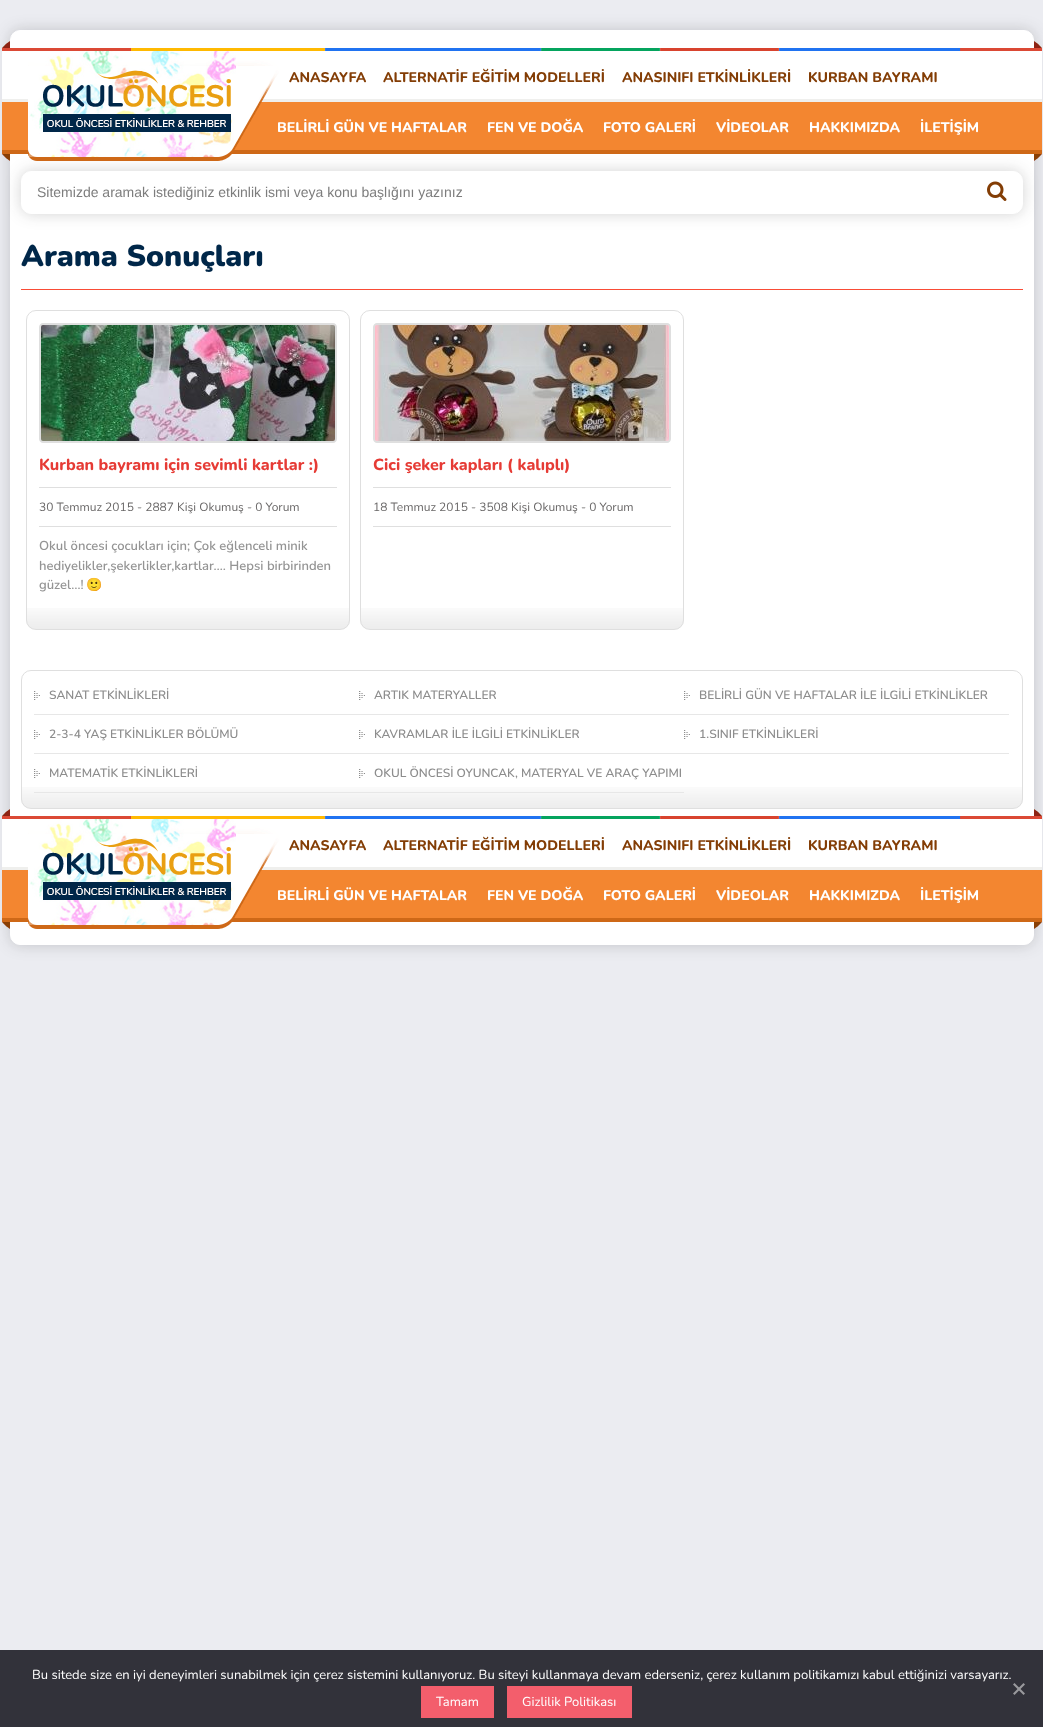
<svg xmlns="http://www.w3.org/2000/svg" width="1043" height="1727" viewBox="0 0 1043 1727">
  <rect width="100%" height="100%" fill="#ebecf1"/>
  <rect x="10" y="30" width="1024" height="915" rx="10" fill="#21212133" filter="blur(7.5px)"/>
  <rect x="10.5" y="30.5" width="1023" height="914" rx="9.5" fill="#fff" stroke="#fff"/>
  <rect x="21" y="171" width="1002" height="43" rx="10" fill="#21212133" filter="blur(7.5px)"/>
  <image x="2" y="41" width="1040" height="120" href="img/1.png"/>
  <image x="43" y="70" width="188" height="62" href="img/2.png"/>
  <rect x="21.5" y="171.5" width="1001" height="42" rx="9.5" fill="#fff" stroke="#fff"/>
  <image x="987" y="181" width="20" height="20" href="img/3.png"/>
  <path d="M21 289h1002v1H21z" fill="#f94c36"/>
  <image x="26" y="608" width="324" height="21" href="img/4.png"/>
  <rect x="26.5" y="310.5" width="323" height="319" rx="9.5" fill="none" stroke="#dfdfdf"/>
  <path d="M43 323H333C335 323 337 325 337 327V439C337 441 335 443 333 443H43C41 443 39 441 39 439V327C39 325 41 323 43 323Z" fill="#dfdfdf"/>
  <image x="41" y="325" width="294" height="116" href="img/5.png"/>
  <path d="M39 487h298v1H39z" fill="#dfdfdf"/>
  <path d="M39 526h298v1H39z" fill="#dfdfdf"/>
  <image x="360" y="608" width="324" height="21" href="img/4.png"/>
  <rect x="360.5" y="310.5" width="323" height="319" rx="9.5" fill="none" stroke="#dfdfdf"/>
  <path d="M377 323H667C669 323 671 325 671 327V439C671 441 669 443 667 443H377C375 443 373 441 373 439V327C373 325 375 323 377 323Z" fill="#dfdfdf"/>
  <image x="375" y="325" width="294" height="116" href="img/6.png"/>
  <path d="M373 487h298v1H373z" fill="#dfdfdf"/>
  <path d="M373 526h298v1H373z" fill="#dfdfdf"/>
  <image x="21" y="787" width="1002" height="21" href="img/7.png"/>
  <rect x="21.5" y="670.5" width="1001" height="138" rx="9.5" fill="none" stroke="#dfdfdf"/>
  <image x="34" y="691" width="6" height="9" href="img/8.png"/>
  <path d="M34 714h975v1H34z" fill="#e7e7e7"/>
  <image x="359" y="691" width="6" height="9" href="img/9.png"/>
  <image x="684" y="691" width="6" height="9" href="img/8.png"/>
  <image x="34" y="730" width="6" height="9" href="img/8.png"/>
  <path d="M34 753h975v1H34z" fill="#e7e7e7"/>
  <image x="359" y="730" width="6" height="9" href="img/9.png"/>
  <image x="684" y="730" width="6" height="9" href="img/8.png"/>
  <image x="34" y="769" width="6" height="9" href="img/8.png"/>
  <path d="M34 792h650v1H34z" fill="#e7e7e7"/>
  <image x="359" y="769" width="6" height="9" href="img/9.png"/>
  <image x="2" y="809" width="1040" height="120" href="img/10.png"/>
  <image x="43" y="838" width="188" height="62" href="img/2.png"/>
  <path d="M0 1650h1043v77H0z" fill="#32323a"/>
  <path d="M1023.5 1683L1025 1684.5L1014.5 1695L1013 1693.5Z" fill="#99999d"/>
  <path d="M1013 1684.5L1014.5 1683L1025 1693.5L1023.5 1695Z" fill="#99999d"/>
  <path d="M421 1686h73v32H421z" fill="#f35e6c"/>
  <path d="M507 1686h125v32H507z" fill="#f35e6c"/>
  <g font-family="Nunito" font-size="14" font-weight="800" fill="#833d05">
    <text x="289" y="82">ANASAYFA</text>
    <text x="383" y="82">ALTERNATİF EĞİTİM MODELLERİ</text>
    <text x="622" y="82">ANASINIFI ETKİNLİKLERİ</text>
    <text x="808" y="82">KURBAN BAYRAMI</text>
  </g>
  <g font-family="Nunito" font-size="14" font-weight="800" fill="#fff">
    <text x="277" y="132">BELİRLİ GÜN VE HAFTALAR</text>
    <text x="487" y="132">FEN VE DOĞA</text>
    <text x="603" y="132">FOTO GALERİ</text>
    <text x="716" y="132">VİDEOLAR</text>
    <text x="809" y="132">HAKKIMIZDA</text>
    <text x="920" y="132">İLETİŞİM</text>
  </g>
  <text x="37" y="197" font-family="Liberation Sans" font-size="14" fill="#7d7d7d">Sitemizde aramak istediğiniz etkinlik ismi veya konu başlığını yazınız</text>
  <text x="21" y="266" font-family="Nunito" font-size="30" font-weight="900" fill="#002749">Arama Sonuçları</text>
  <text x="39" y="470" font-family="Nunito" font-size="16" font-weight="800" fill="#e63b35">Kurban bayramı için sevimli kartlar :)</text>
  <text x="39" y="511" font-family="Nunito" font-size="12" fill="#696767">30 Temmuz 2015 - 2887 Kişi Okumuş - 0 Yorum</text>
  <g font-family="Nunito" font-size="13" font-weight="600" fill="#949494">
    <text x="39" y="550">Okul öncesi çocukları için; Çok eğlenceli minik</text>
    <text x="39" y="570">hediyelikler,şekerlikler,kartlar…. Hepsi birbirinden</text>
    <text x="39" y="589">güzel…!</text>
  </g>
  <text x="86" y="589" font-family="Noto Color Emoji" font-size="13" font-weight="bold" fill="#949494">🙂</text>
  <text x="373" y="470" font-family="Nunito" font-size="16" font-weight="800" fill="#e63b35">Cici şeker kapları ( kalıplı)</text>
  <text x="373" y="511" font-family="Nunito" font-size="12" fill="#696767">18 Temmuz 2015 - 3508 Kişi Okumuş - 0 Yorum</text>
  <g font-family="Nunito" font-size="12" font-weight="600" fill="#8d8d8d">
    <text x="49" y="699">SANAT ETKİNLİKLERİ</text>
    <text x="374" y="699">ARTIK MATERYALLER</text>
    <text x="699" y="699">BELİRLİ GÜN VE HAFTALAR İLE İLGİLİ ETKİNLİKLER</text>
    <text x="49" y="738">2-3-4 YAŞ ETKİNLİKLER BÖLÜMÜ</text>
    <text x="374" y="738">KAVRAMLAR İLE İLGİLİ ETKİNLİKLER</text>
    <text x="699" y="738">1.SINIF ETKİNLİKLERİ</text>
    <text x="49" y="777">MATEMATİK ETKİNLİKLERİ</text>
    <text x="374" y="777">OKUL ÖNCESİ OYUNCAK, MATERYAL VE ARAÇ YAPIMI</text>
  </g>
  <g font-family="Nunito" font-size="14" font-weight="800" fill="#833d05">
    <text x="289" y="850">ANASAYFA</text>
    <text x="383" y="850">ALTERNATİF EĞİTİM MODELLERİ</text>
    <text x="622" y="850">ANASINIFI ETKİNLİKLERİ</text>
    <text x="808" y="850">KURBAN BAYRAMI</text>
  </g>
  <g font-family="Nunito" font-size="14" font-weight="800" fill="#fff">
    <text x="277" y="900">BELİRLİ GÜN VE HAFTALAR</text>
    <text x="487" y="900">FEN VE DOĞA</text>
    <text x="603" y="900">FOTO GALERİ</text>
    <text x="716" y="900">VİDEOLAR</text>
    <text x="809" y="900">HAKKIMIZDA</text>
    <text x="920" y="900">İLETİŞİM</text>
  </g>
  <g font-family="Nunito" font-size="13" fill="#fff">
    <text x="32" y="1679">Bu sitede size en iyi deneyimleri sunabilmek için çerez sistemini kullanıyoruz. Bu siteyi kullanmaya devam ederseniz, çerez kullanım politikamızı kabul ettiğinizi varsayarız.</text>
    <text x="436" y="1706">Tamam</text>
    <text x="522" y="1706">Gizlilik Politikası</text>
  </g>
</svg>
